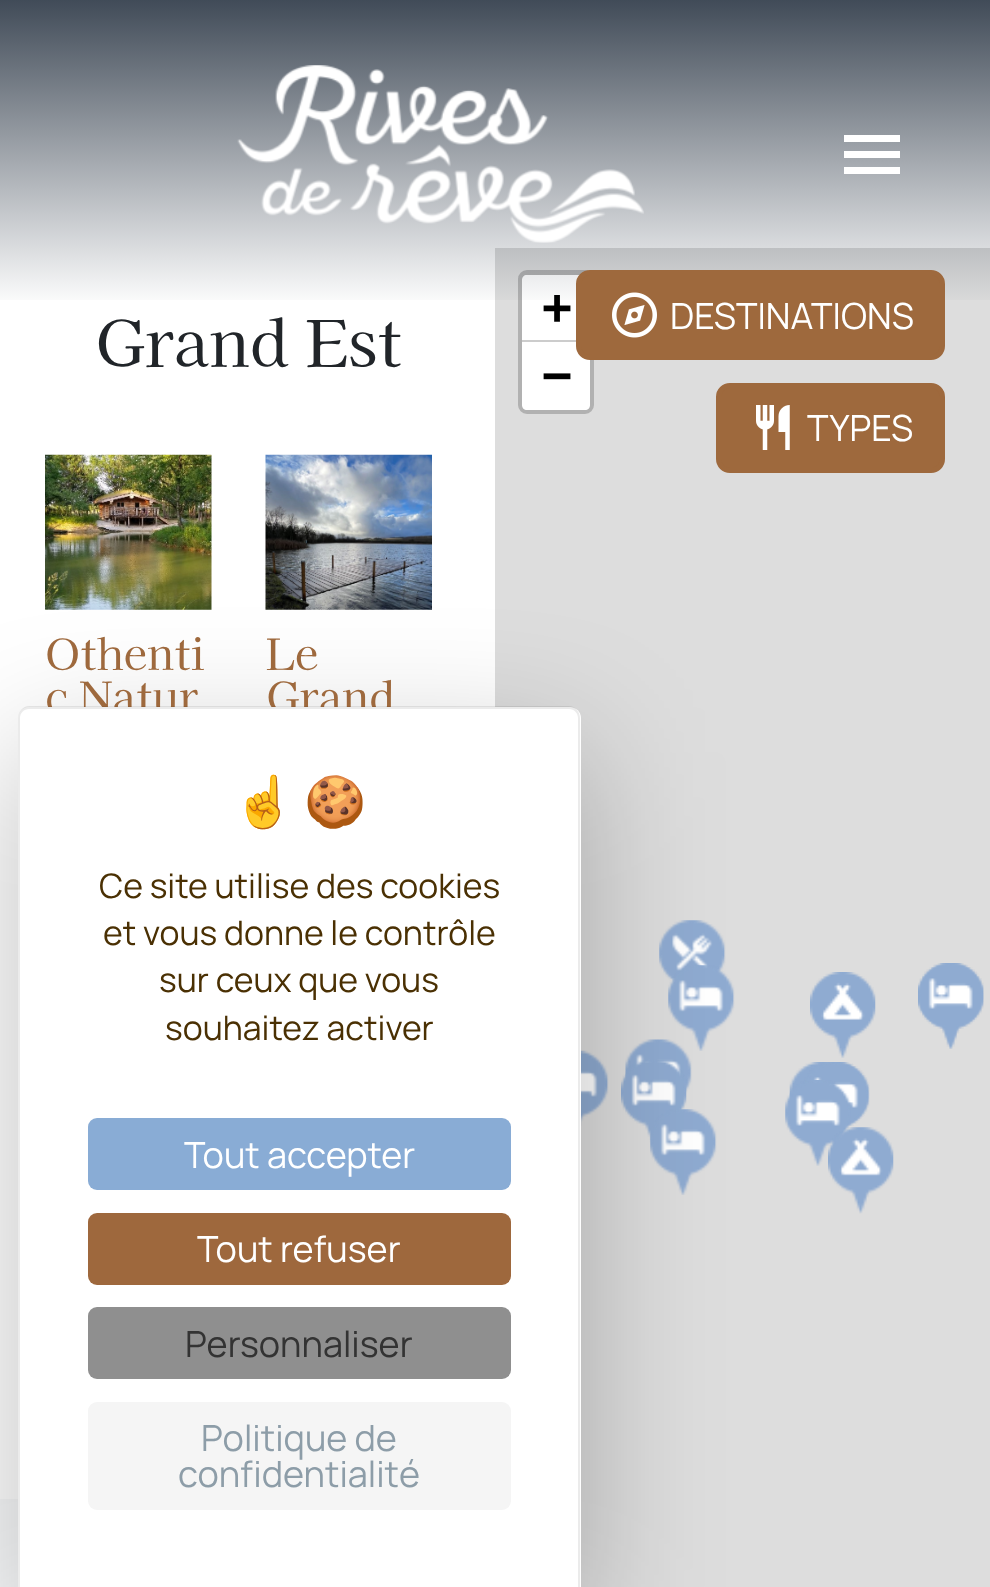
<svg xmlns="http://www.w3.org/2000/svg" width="990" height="1587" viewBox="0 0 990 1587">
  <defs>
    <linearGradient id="g1" gradientUnits="userSpaceOnUse" x1="495" y1="308" x2="495" y2="0"><stop offset="0" stop-color="#111e2e" stop-opacity="0"/><stop offset="1" stop-color="#111e2e" stop-opacity="0.8"/></linearGradient>
  </defs>
  <rect width="100%" height="100%" fill="#fff"/>
  <image x="45" y="454" width="167" height="156" href="img/2.png"/>
  <image x="265" y="454" width="167" height="156" href="img/3.png"/>
  <path d="M495 248h495v1339H495z" fill="#ddd"/>
  <rect x="520.5" y="272.5" width="71" height="139" rx="6.5" fill="none" stroke="#b1b1b1" stroke-width="5"/>
  <path d="M527 275H585C588 275 590 277 590 280V342H522V280C522 277 524 275 527 275Z" fill="#fff"/>
  <path d="M522 340h54v2H522z" fill="#ccc"/>
  <path d="M522 342H590V405C590 408 588 410 585 410H527C524 410 522 408 522 405Z" fill="#fff"/>
  <image x="659" y="920" width="67" height="64" href="img/4.png"/>
  <image x="918" y="963" width="66" height="86" href="img/5.png"/>
  <image x="668" y="965" width="67" height="86" href="img/6.png"/>
  <image x="810" y="972" width="66" height="86" href="img/7.png"/>
  <image x="918" y="963" width="66" height="86" href="img/8.png"/>
  <image x="581" y="1050" width="28" height="76" href="img/9.png"/>
  <image x="625" y="1039" width="67" height="87" href="img/10.png"/>
  <image x="621" y="1060" width="66" height="86" href="img/11.png"/>
  <image x="818" y="1062" width="52" height="84" href="img/14.png"/>
  <image x="789" y="1062" width="51" height="86" href="img/12.png"/>
  <image x="803" y="1062" width="67" height="84" href="img/13.png"/>
  <image x="650" y="1109" width="67" height="86" href="img/15.png"/>
  <image x="785" y="1080" width="66" height="86" href="img/16.png"/>
  <image x="828" y="1127" width="66" height="87" href="img/17.png"/>
  <rect x="718.5" y="385.5" width="224" height="85" rx="11.5" fill="#9e693d" stroke="#9e693d" stroke-width="5"/>
  <image x="756" y="405" width="34" height="45" href="img/19.png"/>
  <path d="M0 1499h18v88H0z" fill="#f8f9fa"/>
  <rect x="18" y="752" width="563" height="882" rx="11" fill="#00000040" filter="blur(67.5px)"/>
  <text x="95" y="367" font-family="Kaisei Decol" font-size="64.5" fill="#212529">Grand Est</text>
  <g font-family="Kaisei Decol" font-size="43" fill="#9e693d">
    <text x="45" y="670">Othenti</text>
    <text x="45" y="713">c Natur</text>
    <text x="266" y="670">Le</text>
    <text x="266" y="713">Grand</text>
  </g>
  <text x="542" y="324" font-family="DejaVu Sans Mono" font-size="50" font-weight="bold" fill="#000">+</text>
  <path d="M0 0h990v300H0z" fill="url(#g1)"/>
  <path d="M844 167h56v7H844z" fill="#fff"/>
  <path d="M844 135h56v7H844z" fill="#fff"/>
  <path d="M844 151h56v7H844z" fill="#fff"/>
  <image x="237" y="65" width="407" height="178" href="img/1.png"/>
  <text x="542" y="392" font-family="DejaVu Sans Mono" font-size="50" font-weight="bold" fill="#000">−</text>
  <rect x="578.5" y="272.5" width="364" height="85" rx="11.5" fill="#9e693d" stroke="#9e693d" stroke-width="5"/>
  <image x="612" y="292" width="45" height="46" href="img/18.png"/>
  <g font-family="Manrope" font-size="36" fill="#fff">
    <text x="670" y="329">DESTINATIONS</text>
    <text x="807" y="441">TYPES</text>
  </g>
  <path d="M29 707H570C576 707 581 712 581 718V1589H18V718C18 712 23 707 29 707Z" fill="#fff"/>
  <path d="M29 706H569C575 706 580 712 580 718V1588H18V718C18 712 23 706 29 706ZM29 709H569C574 709 578 713 578 718V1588H20V718C20 713 24 709 29 709Z" fill="#00000014" fill-rule="evenodd"/>
  <g font-family="Noto Color Emoji" font-size="50" fill="#4a3003">
    <text x="233" y="819">☝️</text>
    <text x="304" y="819">🍪</text>
  </g>
  <g font-family="Manrope" font-size="33.75" fill="#4a3003">
    <text x="99" y="898">Ce site utilise des cookies</text>
    <text x="103" y="945">et vous donne le contrôle</text>
    <text x="159" y="992">sur ceux que vous</text>
    <text x="165" y="1040">souhaitez activer</text>
  </g>
  <rect x="88" y="1118" width="423" height="72" rx="9" fill="#89acd5"/>
  <text x="184" y="1168" font-family="Manrope" font-size="36" fill="#fff">Tout accepter</text>
  <rect x="88" y="1213" width="423" height="72" rx="9" fill="#9e683d"/>
  <text x="197" y="1262" font-family="Manrope" font-size="36" fill="#fff">Tout refuser</text>
  <rect x="88" y="1307" width="423" height="72" rx="9" fill="#8f8f8f"/>
  <text x="185" y="1357" font-family="Manrope" font-size="36" fill="#333">Personnaliser</text>
  <rect x="88" y="1402" width="423" height="108" rx="9" fill="#f5f5f5"/>
  <g font-family="Manrope" font-size="36" fill="#8d9da8">
    <text x="201" y="1451">Politique de</text>
    <text x="178" y="1487">confidentialité</text>
  </g>
</svg>
